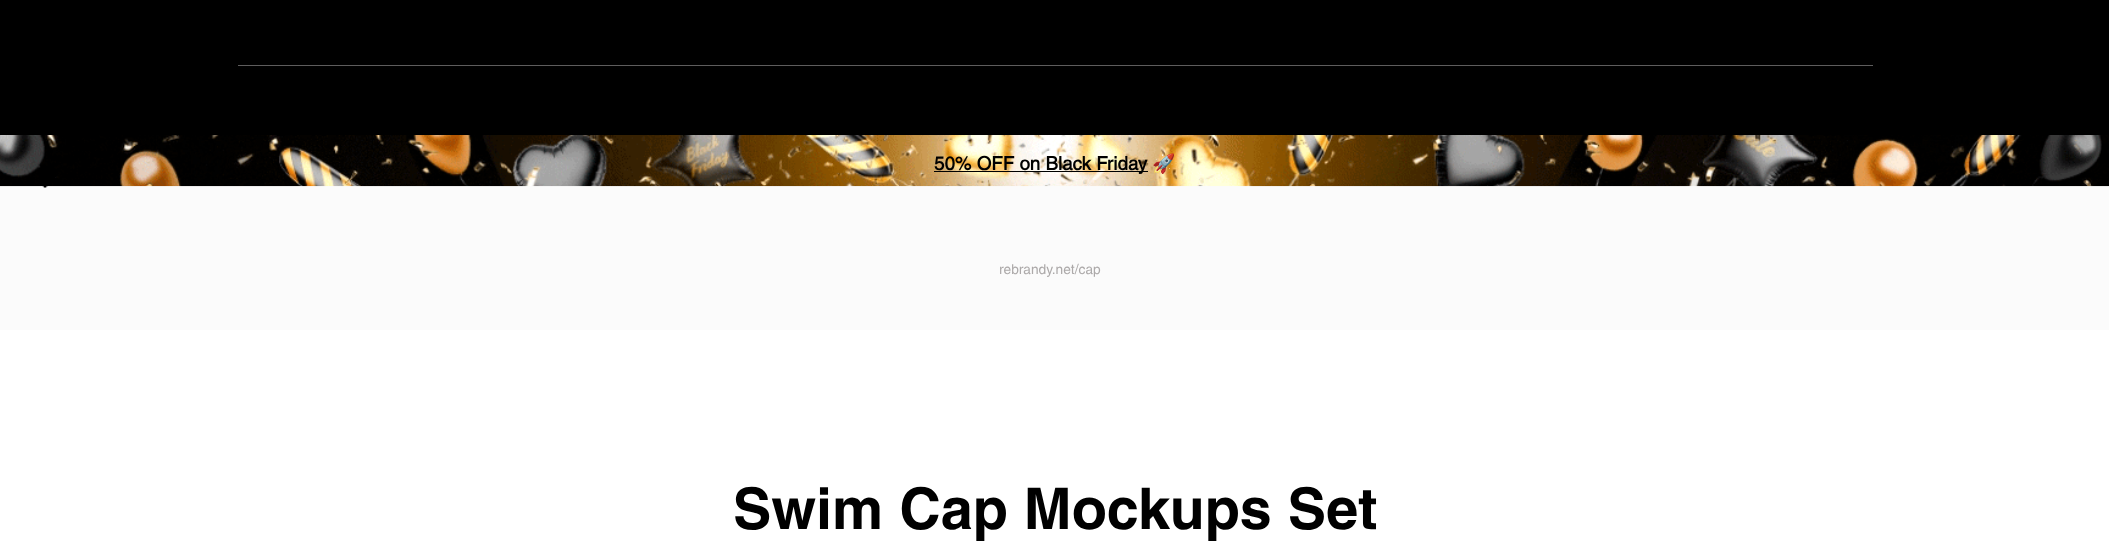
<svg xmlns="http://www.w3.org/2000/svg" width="2109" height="558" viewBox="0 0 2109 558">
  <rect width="100%" height="100%" fill="#fff"/>
  <path d="M0 0h2109v135H0z" fill="#000"/>
  <path d="M238 65h1635v1H238z" fill="#5e5d5d"/>
  <path d="M0 186h2109v144H0z" fill="#fbfbfb"/>
  <image x="0" y="135" width="2109" height="52" href="img/1.png"/>
  <path d="M934 171h214v1H934z" fill="#000"/>
  <image x="39" y="166" width="18" height="22" href="img/2.png"/>
  <text x="934" y="170" font-family="'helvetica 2'" font-size="18.75" font-weight="bold" fill="#000">50% OFF on Black Friday</text>
  <text x="1152" y="170" font-family="Noto Color Emoji" font-size="18.75" fill="#000">🚀</text>
  <text x="999" y="274" font-family="helvetica" font-size="13.75" fill="#aca9a9">rebrandy.net/cap</text>
  <text x="733" y="529" font-family="helvetica" font-size="57.5" font-weight="bold" fill="#000">Swim Cap Mockups Set</text>
</svg>
